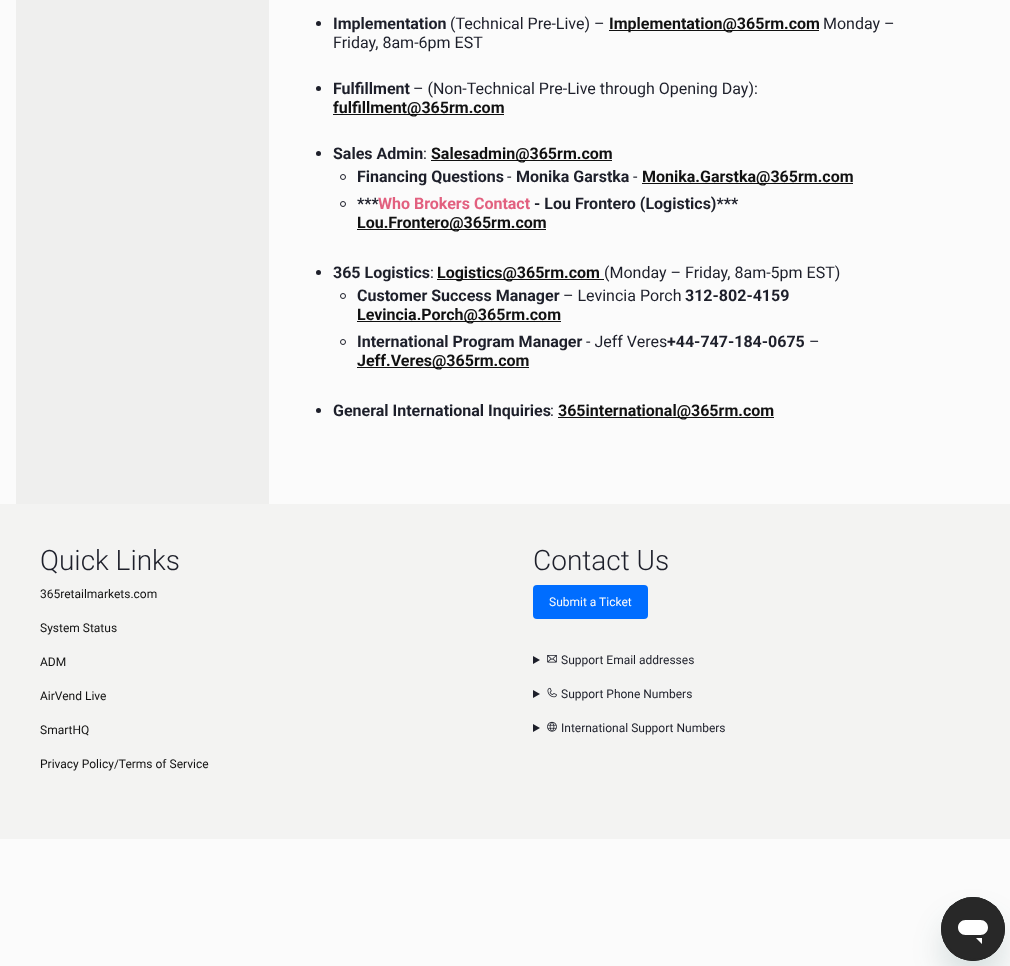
<svg xmlns="http://www.w3.org/2000/svg" width="1010" height="966" viewBox="0 0 1010 966">
  <rect width="100%" height="100%" fill="#fbfbfb"/>
  <path d="M16 0h253v504H16z" fill="#efefee"/>
  <circle cx="318.5" cy="23.5" r="2.5" fill="#1d1f2a"/>
  <path d="M609 30h210v1H609z" fill="#111"/>
  <circle cx="318.5" cy="88.5" r="2.5" fill="#1d1f2a"/>
  <path d="M333 114h171v1H333z" fill="#111"/>
  <circle cx="318.5" cy="153.5" r="2.5" fill="#1d1f2a"/>
  <path d="M431 160h181v1H431z" fill="#111"/>
  <circle cx="343" cy="177" r="2.5" fill="none" stroke="#1d1f2a"/>
  <path d="M642 183h211v1H642z" fill="#111"/>
  <circle cx="343" cy="204" r="2.5" fill="none" stroke="#1d1f2a"/>
  <path d="M357 229h189v1H357z" fill="#111"/>
  <circle cx="318.5" cy="272.5" r="2.5" fill="#1d1f2a"/>
  <path d="M437 279h167v1H437z" fill="#111"/>
  <circle cx="343" cy="296" r="2.5" fill="none" stroke="#1d1f2a"/>
  <path d="M357 321h204v1H357z" fill="#111"/>
  <circle cx="343" cy="342" r="2.5" fill="none" stroke="#1d1f2a"/>
  <path d="M357 367h172v1H357z" fill="#111"/>
  <circle cx="318.5" cy="410.5" r="2.5" fill="#1d1f2a"/>
  <path d="M558 417h216v1H558z" fill="#111"/>
  <path d="M0 504h1010v335H0z" fill="#f3f3f2"/>
  <rect x="533" y="585" width="115" height="34" rx="4" fill="#006dff"/>
  <path d="M533 656L540 660L533 664Z" fill="#1d1f2a"/>
  <image x="547" y="655" width="10" height="8" href="img/1.png"/>
  <path d="M533 690L540 694L533 698Z" fill="#1d1f2a"/>
  <image x="547" y="687" width="10" height="11" href="img/2.png"/>
  <path d="M533 724L540 728L533 732Z" fill="#1d1f2a"/>
  <image x="547" y="721" width="10" height="11" href="img/3.png"/>
  <rect x="941" y="917" width="64" height="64" rx="32" fill="#17494d26" filter="blur(15px)"/>
  <image x="941" y="897" width="64" height="64" href="img/4.png"/>
  <text x="333" y="29" font-family="Roboto" font-size="16" font-weight="bold" fill="#1d1f2a">Implementation</text>
  <text x="450" y="29" font-family="Roboto" font-size="16" fill="#1d1f2a">(Technical Pre-Live) –</text>
  <text x="609" y="29" font-family="Roboto" font-size="16" font-weight="bold" fill="#111">Implementation@365rm.com</text>
  <g font-family="Roboto" font-size="16" fill="#1d1f2a">
    <text x="823" y="29">Monday –</text>
    <text x="333" y="48">Friday, 8am-6pm EST</text>
  </g>
  <text x="333" y="94" font-family="Roboto" font-size="16" font-weight="bold" fill="#1d1f2a">Fulfillment</text>
  <text x="413" y="94" font-family="Roboto" font-size="16" fill="#1d1f2a">– (Non-Technical Pre-Live through Opening Day):</text>
  <text x="333" y="113" font-family="Roboto" font-size="16" font-weight="bold" fill="#111">fulfillment@365rm.com</text>
  <text x="333" y="159" font-family="Roboto" font-size="16" font-weight="bold" fill="#1d1f2a">Sales Admin</text>
  <text x="423" y="159" font-family="Roboto" font-size="16" fill="#1d1f2a">:</text>
  <text x="431" y="159" font-family="Roboto" font-size="16" font-weight="bold" fill="#111">Salesadmin@365rm.com</text>
  <text x="357" y="182" font-family="Roboto" font-size="16" font-weight="bold" fill="#1d1f2a">Financing Questions</text>
  <text x="507" y="182" font-family="Roboto" font-size="16" fill="#1d1f2a">-</text>
  <text x="516" y="182" font-family="Roboto" font-size="16" font-weight="bold" fill="#1d1f2a">Monika Garstka</text>
  <text x="633" y="182" font-family="Roboto" font-size="16" fill="#1d1f2a">-</text>
  <text x="642" y="182" font-family="Roboto" font-size="16" font-weight="bold" fill="#111">Monika.Garstka@365rm.com</text>
  <text x="357" y="209" font-family="Roboto" font-size="16" font-weight="bold" fill="#1d1f2a">***</text>
  <text x="378" y="209" font-family="Roboto" font-size="16" font-weight="bold" fill="#e2607f">Who Brokers Contact</text>
  <text x="534" y="209" font-family="Roboto" font-size="16" font-weight="bold" fill="#1d1f2a">- Lou Frontero (Logistics)***</text>
  <text x="357" y="228" font-family="Roboto" font-size="16" font-weight="bold" fill="#111">Lou.Frontero@365rm.com</text>
  <text x="333" y="278" font-family="Roboto" font-size="16" font-weight="bold" fill="#1d1f2a">365 Logistics</text>
  <text x="430" y="278" font-family="Roboto" font-size="16" fill="#1d1f2a">:</text>
  <text x="437" y="278" font-family="Roboto" font-size="16" font-weight="bold" fill="#111">Logistics@365rm.com</text>
  <text x="604" y="278" font-family="Roboto" font-size="16" fill="#1d1f2a">(Monday – Friday, 8am-5pm EST)</text>
  <text x="357" y="301" font-family="Roboto" font-size="16" font-weight="bold" fill="#1d1f2a">Customer Success Manager</text>
  <text x="563" y="301" font-family="Roboto" font-size="16" fill="#1d1f2a">– Levincia Porch</text>
  <text x="685" y="301" font-family="Roboto" font-size="16" font-weight="bold" fill="#1d1f2a">312-802-4159</text>
  <text x="357" y="320" font-family="Roboto" font-size="16" font-weight="bold" fill="#111">Levincia.Porch@365rm.com</text>
  <text x="357" y="347" font-family="Roboto" font-size="16" font-weight="bold" fill="#1d1f2a">International Program Manager</text>
  <text x="586" y="347" font-family="Roboto" font-size="16" fill="#1d1f2a">- Jeff Veres</text>
  <text x="667" y="347" font-family="Roboto" font-size="16" font-weight="bold" fill="#1d1f2a">+44-747-184-0675</text>
  <text x="809" y="347" font-family="Roboto" font-size="16" fill="#1d1f2a">–</text>
  <text x="357" y="366" font-family="Roboto" font-size="16" font-weight="bold" fill="#111">Jeff.Veres@365rm.com</text>
  <text x="333" y="416" font-family="Roboto" font-size="16" font-weight="bold" fill="#1d1f2a">General International Inquiries</text>
  <text x="550" y="416" font-family="Roboto" font-size="16" fill="#1d1f2a">:</text>
  <text x="558" y="416" font-family="Roboto" font-size="16" font-weight="bold" fill="#111">365international@365rm.com</text>
  <text x="40" y="570" font-family="Roboto" font-size="28" font-weight="300" fill="#1d1f2a">Quick Links</text>
  <g font-family="Roboto" font-size="12" fill="#111">
    <text x="40" y="598">365retailmarkets.com</text>
    <text x="40" y="632">System Status</text>
    <text x="40" y="666">ADM</text>
    <text x="40" y="700">AirVend Live</text>
    <text x="40" y="734">SmartHQ</text>
    <text x="40" y="768">Privacy Policy/Terms of Service</text>
  </g>
  <text x="533" y="570" font-family="Roboto" font-size="28" font-weight="300" fill="#1d1f2a">Contact Us</text>
  <text x="549" y="606" font-family="Roboto" font-size="12" fill="#fbfbfb">Submit a Ticket</text>
  <g font-family="Roboto" font-size="12" fill="#1d1f2a">
    <text x="561" y="664">Support Email addresses</text>
    <text x="561" y="698">Support Phone Numbers</text>
    <text x="561" y="732">International Support Numbers</text>
  </g>
</svg>
